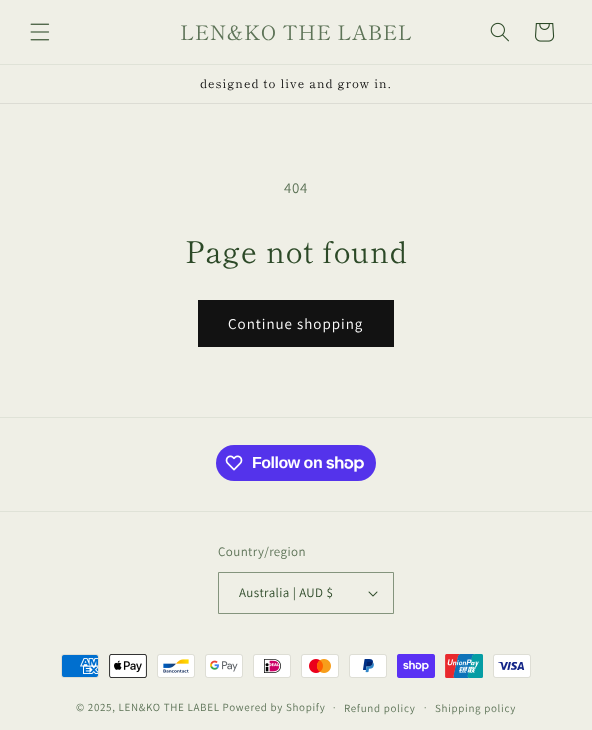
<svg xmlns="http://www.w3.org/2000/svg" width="592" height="730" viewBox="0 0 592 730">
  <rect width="100%" height="100%" fill="#efefe6"/>
  <path d="M0 64h592v1H0z" fill="#dfe2d7"/>
  <image x="30" y="23" width="20" height="18" href="img/1.png"/>
  <image x="490" y="22" width="19" height="20" href="img/2.png"/>
  <image x="535" y="23" width="20" height="19" href="img/3.png"/>
  <path d="M0 103h592v1H0z" fill="#dcdcd4"/>
  <path d="M198 300h196v47H198z" fill="#121212"/>
  <path d="M0 417h592v1H0z" fill="#dfe2d7"/>
  <rect x="216" y="445" width="160" height="36" rx="18" fill="#5433eb"/>
  <image x="225" y="455" width="18" height="16" href="img/4.png"/>
  <image x="326" y="456" width="38" height="16" href="img/5.png"/>
  <path d="M0 511h592v1H0z" fill="#dfe2d7"/>
  <image x="368" y="591" width="10" height="6" href="img/6.png"/>
  <path d="M218.5 572.5h175v41H218.5z" fill="none" stroke="#84947d"/>
  <image x="61" y="654" width="38" height="24" href="img/7.png"/>
  <image x="109" y="654" width="38" height="24" href="img/8.png"/>
  <image x="157" y="654" width="38" height="24" href="img/9.png"/>
  <image x="205" y="654" width="38" height="24" href="img/10.png"/>
  <image x="253" y="654" width="38" height="24" href="img/11.png"/>
  <image x="301" y="654" width="38" height="24" href="img/12.png"/>
  <image x="349" y="654" width="38" height="24" href="img/13.png"/>
  <image x="397" y="654" width="38" height="24" href="img/14.png"/>
  <image x="445" y="654" width="38" height="24" href="img/15.png"/>
  <image x="493" y="654" width="38" height="24" href="img/16.png"/>
  <text x="180" y="40" font-family="Shippori Mincho" font-size="20" letter-spacing="0.6" fill="#5d7357">LEN&amp;KO THE LABEL</text>
  <text x="200" y="88" font-family="Shippori Mincho" font-size="12" letter-spacing="1" fill="#000">designed to live and grow in.</text>
  <text x="284" y="193" font-family="Assistant" font-size="15" letter-spacing="0.6" fill="#5d7357">404</text>
  <text x="185" y="263" font-family="Shippori Mincho" font-size="30" letter-spacing="0.6" fill="#2c4927">Page not found</text>
  <text x="228" y="329" font-family="Assistant" font-size="15" letter-spacing="1" fill="#fff">Continue shopping</text>
  <text x="252" y="468" font-family="Liberation Sans" font-size="16" font-weight="bold" letter-spacing="-0.5" fill="#fff">Follow on</text>
  <text x="218" y="556" font-family="Assistant" font-size="13" letter-spacing="0.4" fill="#5d7357">Country/region</text>
  <text x="239" y="597" font-family="Assistant" font-size="13" letter-spacing="0.4" fill="#2c4927">Australia | AUD $</text>
  <text x="76" y="711" font-family="Assistant" font-size="11" letter-spacing="0.7" fill="#5d7357">© 2025, LEN&amp;KO THE LABEL Powered by Shopify</text>
  <text x="333" y="711" font-family="Assistant" font-size="10" letter-spacing="0.7" fill="#5d7357">·</text>
  <text x="344" y="712" font-family="Assistant" font-size="11" letter-spacing="0.7" fill="#5d7357">Refund policy</text>
  <text x="424" y="711" font-family="Assistant" font-size="10" letter-spacing="0.7" fill="#5d7357">·</text>
  <text x="435" y="712" font-family="Assistant" font-size="11" letter-spacing="0.7" fill="#5d7357">Shipping policy</text>
</svg>
